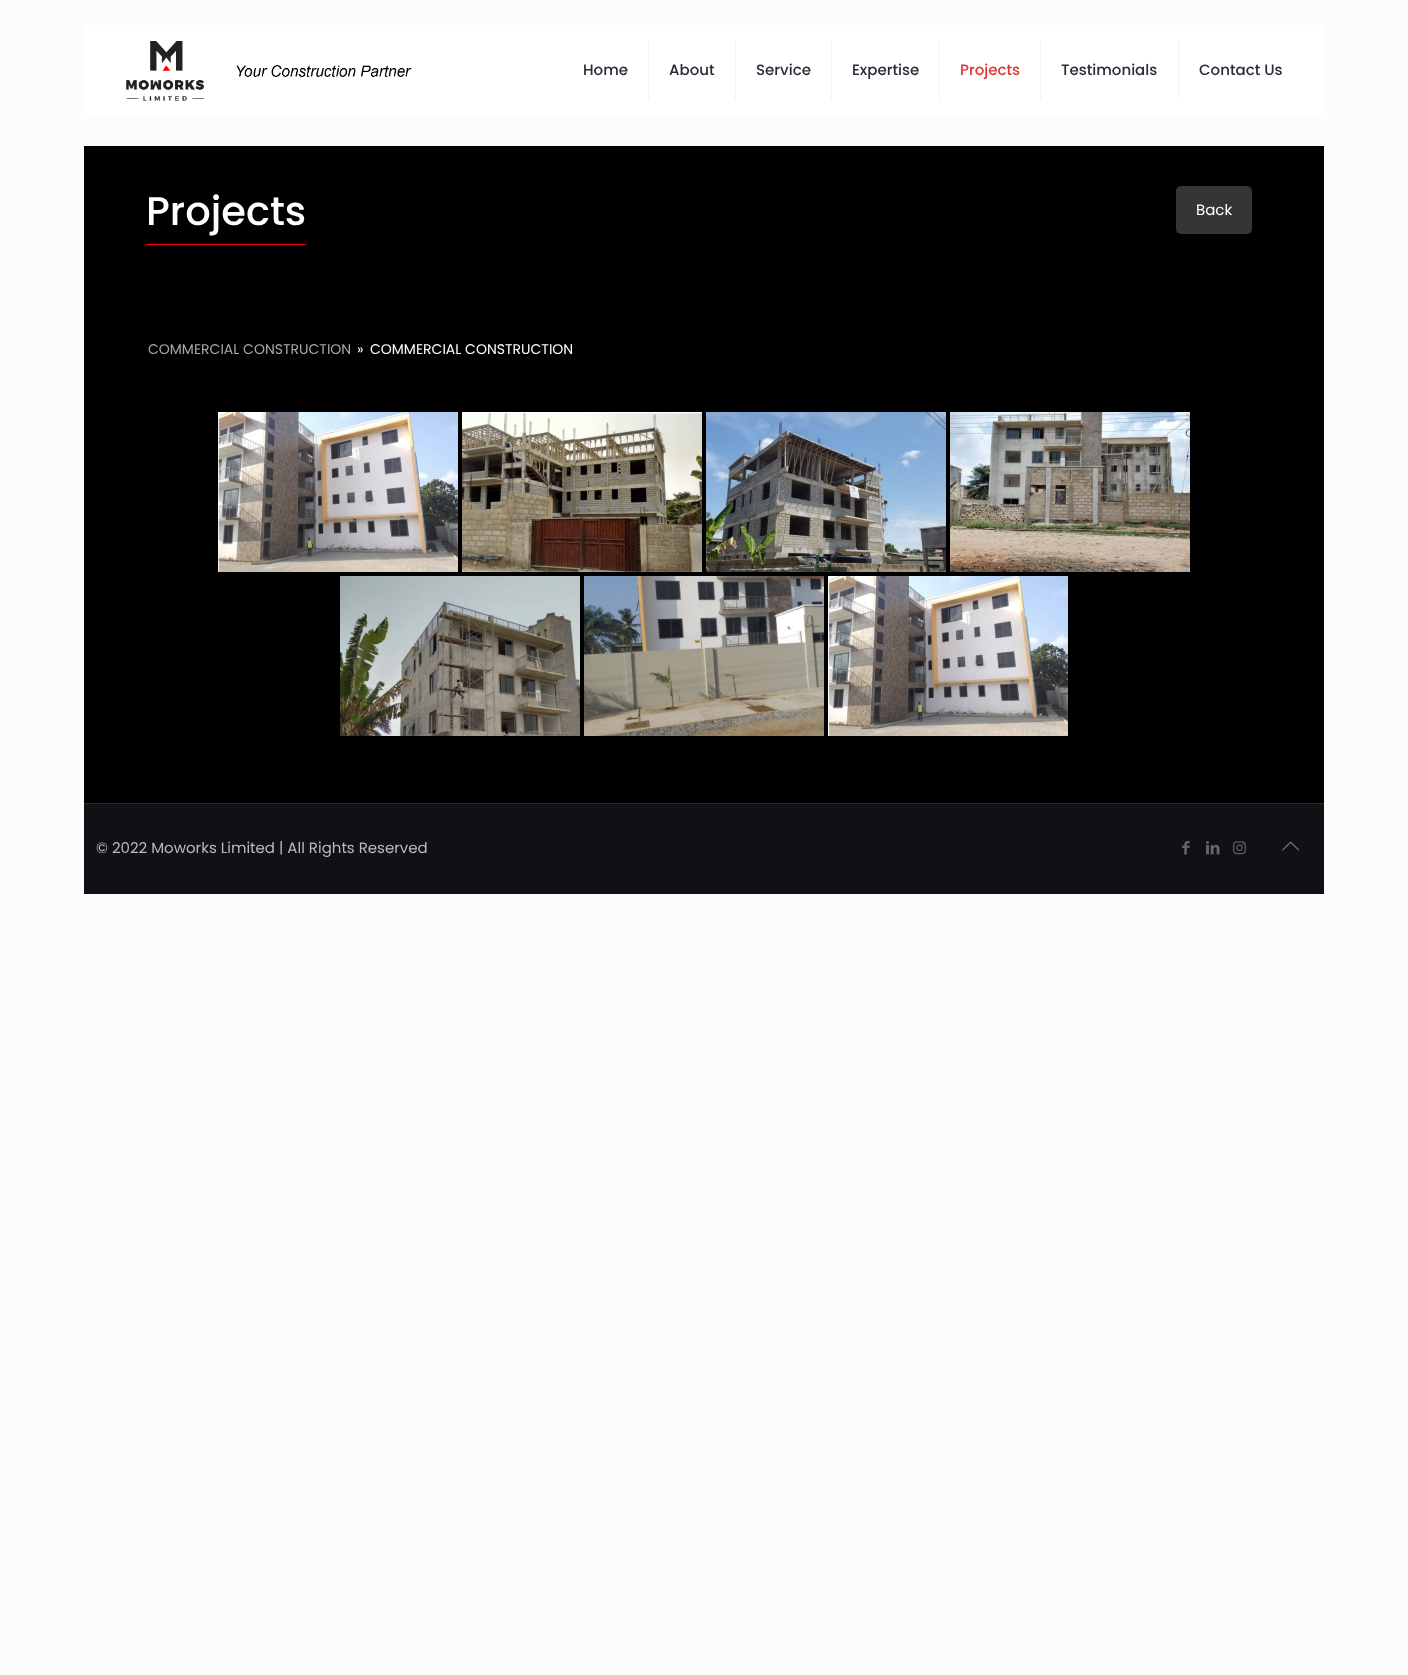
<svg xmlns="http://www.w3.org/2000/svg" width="1408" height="1675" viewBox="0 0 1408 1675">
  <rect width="100%" height="100%" fill="#fcfcfc"/>
  <path d="M84 25h1240v91H84z" fill="#fff"/>
  <image x="126" y="41" width="286" height="60" href="img/1.png"/>
  <path d="M648 40h1v60H648z" fill="#f2f2f2"/>
  <path d="M735 40h1v60H735z" fill="#f2f2f2"/>
  <path d="M831 40h1v60H831z" fill="#f2f2f2"/>
  <path d="M939 40h1v60H939z" fill="#f2f2f2"/>
  <path d="M1040 40h1v60H1040z" fill="#f2f2f2"/>
  <path d="M1178 40h1v60H1178z" fill="#f2f2f2"/>
  <path d="M84 146h1240v657H84z" fill="#000"/>
  <path d="M146 244h160v1H146z" fill="#f00"/>
  <rect x="1176" y="186" width="76" height="48" rx="5" fill="#353535"/>
  <image x="218" y="412" width="240" height="160" href="img/2.png"/>
  <image x="462" y="412" width="240" height="160" href="img/3.png"/>
  <image x="706" y="412" width="240" height="160" href="img/4.png"/>
  <image x="950" y="412" width="240" height="160" href="img/5.png"/>
  <image x="340" y="576" width="240" height="160" href="img/6.png"/>
  <image x="584" y="576" width="240" height="160" href="img/7.png"/>
  <image x="828" y="576" width="240" height="160" href="img/8.png"/>
  <path d="M84 804h1240v90H84z" fill="#101015"/>
  <path d="M84 803h1240v1H84z" fill="#28282c"/>
  <image x="1182" y="841" width="8" height="14" href="img/9.png"/>
  <image x="1206" y="841" width="14" height="14" href="img/10.png"/>
  <image x="1233" y="841" width="13" height="14" href="img/11.png"/>
  <image x="1282" y="841" width="18" height="10" href="img/12.png"/>
  <g font-family="Poppins" font-size="15" font-weight="500" fill="#2a2b39">
    <text x="583" y="75">Home</text>
    <text x="669" y="75">About</text>
    <text x="756" y="75">Service</text>
    <text x="852" y="75">Expertise</text>
  </g>
  <text x="960" y="75" font-family="Poppins" font-size="15" font-weight="500" fill="#d33">Projects</text>
  <g font-family="Poppins" font-size="15" font-weight="500" fill="#2a2b39">
    <text x="1061" y="75">Testimonials</text>
    <text x="1199" y="75">Contact Us</text>
  </g>
  <text x="146" y="225" font-family="Poppins" font-size="40" font-weight="500" fill="#fff">Projects</text>
  <text x="1196" y="215" font-family="Poppins" font-size="15" fill="#fff">Back</text>
  <text x="148" y="354" font-family="Poppins" font-size="14" fill="#a8a8a8">COMMERCIAL CONSTRUCTION</text>
  <g font-family="Poppins" font-size="14" fill="#fff">
    <text x="357" y="354">»</text>
    <text x="370" y="354">COMMERCIAL CONSTRUCTION</text>
  </g>
  <text x="96" y="853" font-family="Poppins" font-size="15" fill="#bababa">© 2022 Moworks Limited | All Rights Reserved</text>
</svg>
